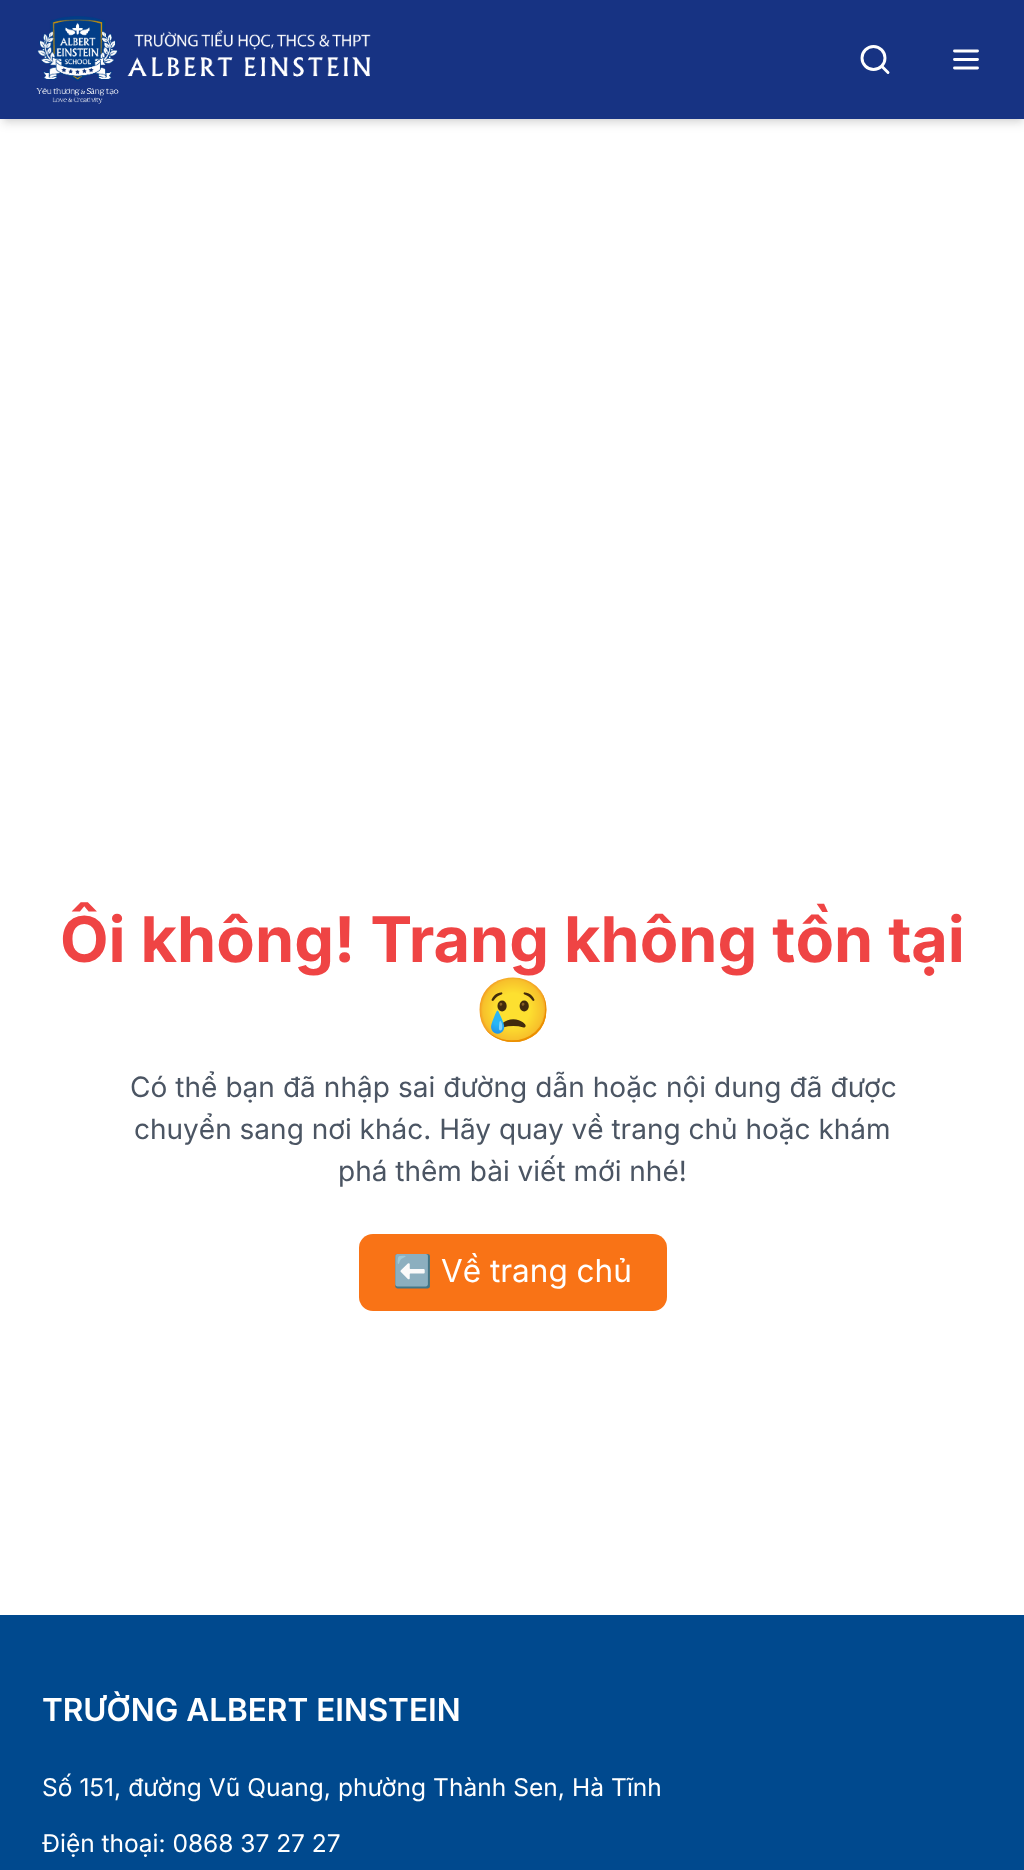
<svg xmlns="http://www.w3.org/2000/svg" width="1024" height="1870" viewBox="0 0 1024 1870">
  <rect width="100%" height="100%" fill="#fff"/>
  <path d="M4 7h1018v112H4z" fill="#0000001a" filter="blur(3.5px)"/>
  <path d="M2 9h1022v115H2z" fill="#0000001a" filter="blur(5px)"/>
  <path d="M0 0h1024v119H0z" fill="#173383"/>
  <image x="36" y="16" width="335" height="88" href="img/1.png"/>
  <circle cx="873.5" cy="58" r="11.5" fill="none" stroke="#fff" stroke-width="2.9"/>
  <path d="M888 72.5L882 66.5" fill="none" stroke="#fff" stroke-width="2.9" stroke-linecap="round" stroke-linejoin="round"/>
  <path d="M954.5 59.5H977.5M954.5 51H977.5M954.5 68H977.5" fill="none" stroke="#fff" stroke-width="2.9" stroke-linecap="round" stroke-linejoin="round"/>
  <rect x="359" y="1234" width="308" height="77" rx="14" fill="#f97316"/>
  <path d="M0 1615h1024v255H0z" fill="#00498e"/>
  <text x="60" y="962" font-family="Inter" font-size="63" font-weight="bold" fill="#ef4444">Ôi không! Trang không tồn tại</text>
  <text x="474" y="1032" font-family="Noto Color Emoji" font-size="63" font-weight="bold" fill="#ef4444">😢</text>
  <g font-family="Inter" font-size="28" fill="#4b5563">
    <text x="130" y="1097" word-spacing="0.2">Có thể bạn đã nhập sai đường dẫn hoặc nội dung đã được</text>
    <text x="134" y="1139">chuyển sang nơi khác. Hãy quay về trang chủ hoặc khám</text>
    <text x="338" y="1181">phá thêm bài viết mới nhé!</text>
  </g>
  <text x="393" y="1282" font-family="Noto Color Emoji" font-size="31.5" fill="#fff">⬅️</text>
  <text x="441" y="1282" font-family="Inter" font-size="31.5" fill="#fff">Về trang chủ</text>
  <text x="42" y="1721" font-family="Inter" font-size="31.5" font-weight="600" fill="#fff">TRƯỜNG ALBERT EINSTEIN</text>
  <g font-family="Inter" font-size="24.5" fill="#fff">
    <text x="42" y="1796" word-spacing="0.25">Số 151, đường Vũ Quang, phường Thành Sen, Hà Tĩnh</text>
    <text x="42" y="1852">Điện thoại: 0868 37 27 27</text>
  </g>
</svg>
